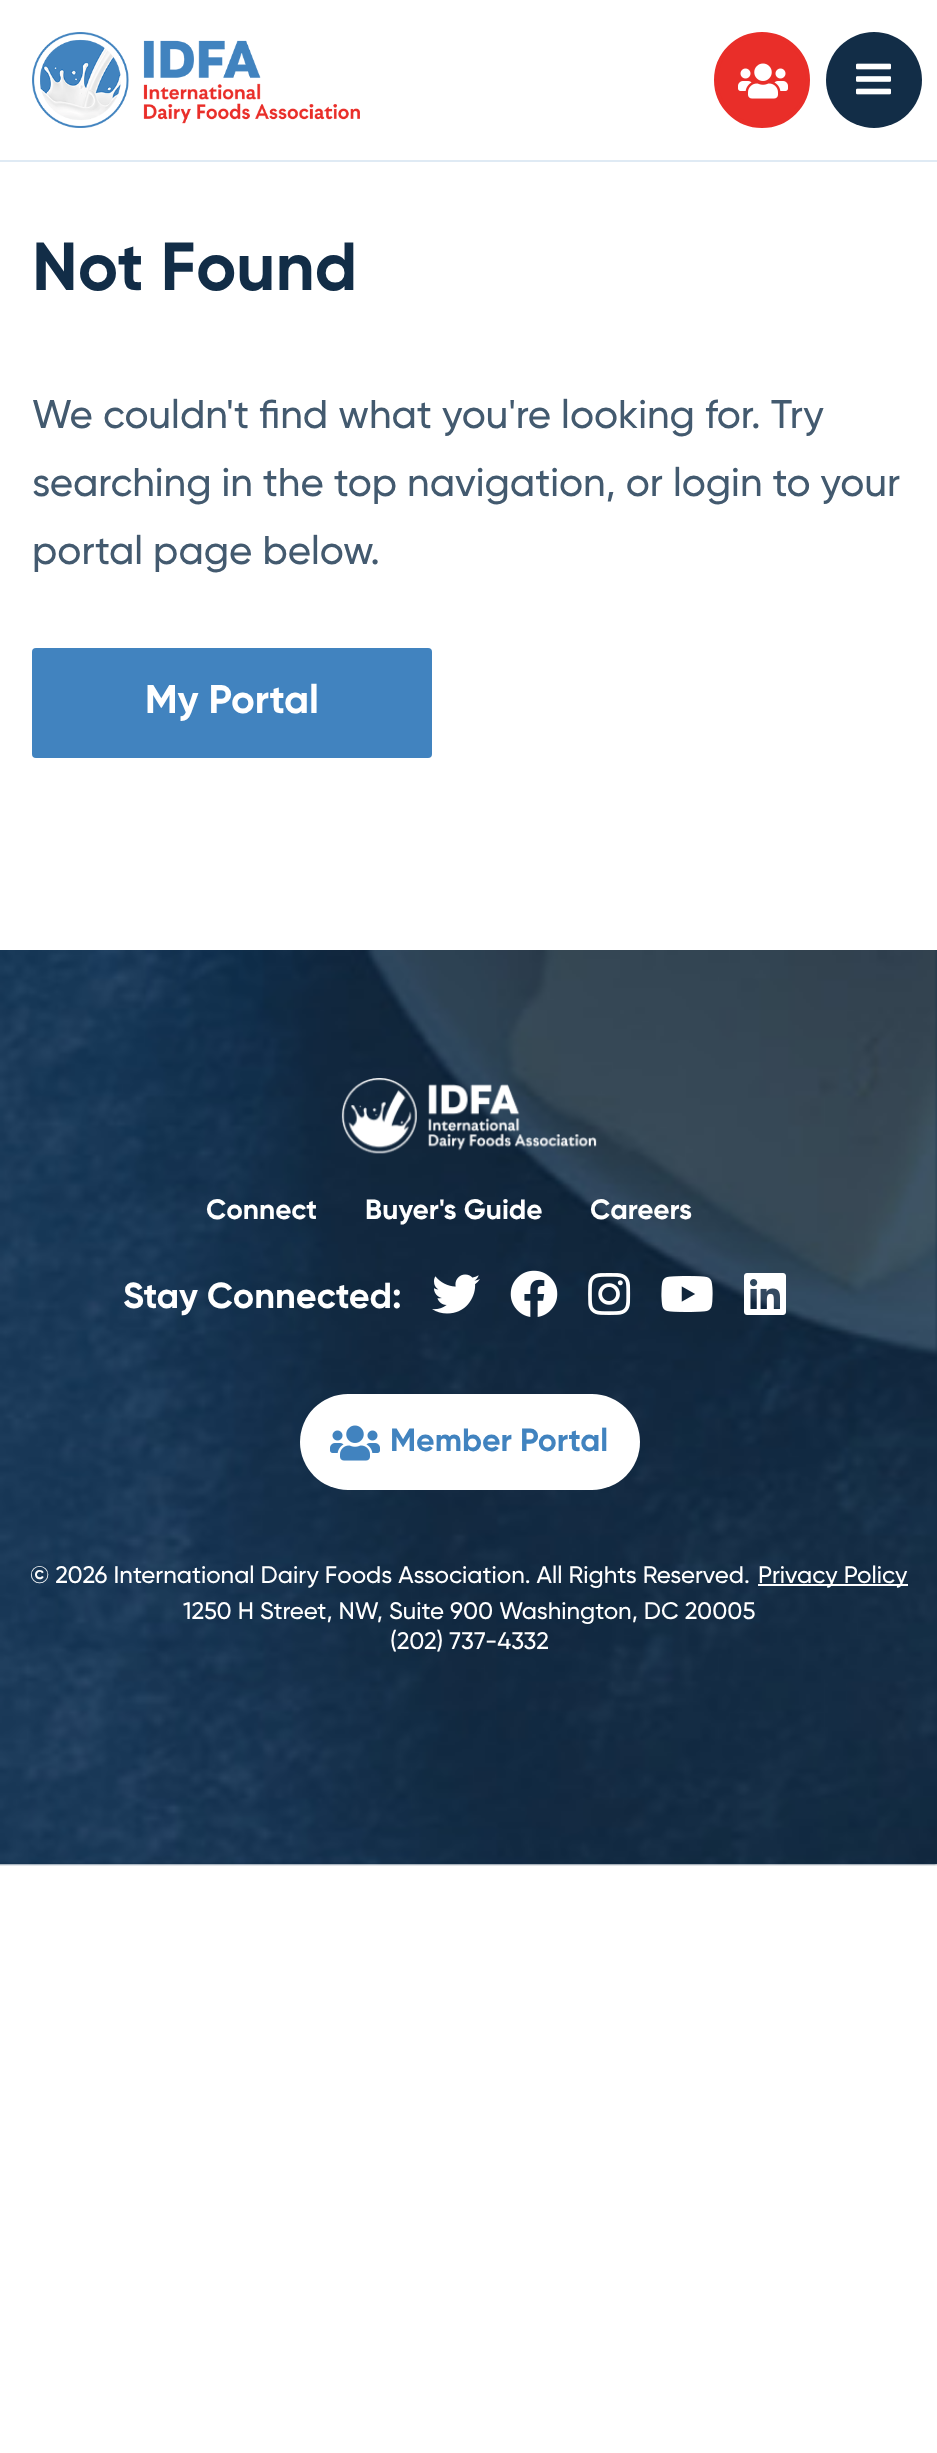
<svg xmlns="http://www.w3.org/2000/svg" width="937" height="2453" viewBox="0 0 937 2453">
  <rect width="100%" height="100%" fill="#fff"/>
  <path d="M0 160h937v2H0z" fill="#dfeaf4"/>
  <image x="32" y="32" width="328" height="96" href="img/1.png"/>
  <circle cx="762" cy="80" r="46" fill="#e92e29" stroke="#e92e29" stroke-width="4"/>
  <image x="738" y="63" width="50" height="36" href="img/2.png"/>
  <circle cx="874" cy="80" r="48" fill="#122d47"/>
  <image x="856" y="63" width="35" height="32" href="img/3.png"/>
  <rect x="32" y="648" width="400" height="110" rx="4" fill="#4183bf"/>
  <path d="M0 950h937v914H0z" fill="#122d47"/>
  <image x="0" y="950" width="937" height="916" href="img/4.png"/>
  <image x="341" y="1078" width="256" height="76" href="img/5.png"/>
  <image x="432" y="1274" width="48" height="40" href="img/6.png"/>
  <image x="510" y="1270" width="48" height="47" href="img/7.png"/>
  <image x="588" y="1273" width="43" height="42" href="img/8.png"/>
  <image x="661" y="1276" width="52" height="36" href="img/9.png"/>
  <image x="744" y="1273" width="42" height="42" href="img/10.png"/>
  <rect x="300" y="1394" width="340" height="96" rx="48" fill="#fff"/>
  <image x="330" y="1425" width="50" height="36" href="img/11.png"/>
  <path d="M758 1584h150v2H758z" fill="#fff"/>
  <text x="32" y="290" font-family="Gilroy" font-size="68" fill="#122d47">Not Found</text>
  <g font-family="'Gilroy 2'" font-size="40" fill="#435a6f">
    <text x="32" y="428">We couldn't find what you're looking for. Try</text>
    <text x="32" y="496">searching in the top navigation, or login to your</text>
    <text x="32" y="564">portal page below.</text>
  </g>
  <text x="145" y="713" font-family="Gilroy" font-size="40" fill="#fff">My Portal</text>
  <g font-family="Gilroy" font-size="28" fill="#fff">
    <text x="206" y="1219">Connect</text>
    <text x="365" y="1219">Buyer's Guide</text>
    <text x="590" y="1219">Careers</text>
  </g>
  <text x="123" y="1308" font-family="Gilroy" font-size="36" fill="#fff">Stay Connected:</text>
  <text x="390" y="1451" font-family="Gilroy" font-size="32" fill="#4183bf">Member Portal</text>
  <g font-family="'Gilroy 2'" font-size="24" fill="#fff">
    <text x="30" y="1583">© 2026 International Dairy Foods Association. All Rights Reserved.</text>
    <text x="758" y="1583">Privacy Policy</text>
    <text x="183" y="1619">1250 H Street, NW, Suite 900 Washington, DC 20005</text>
    <text x="390" y="1649">(202) 737-4332</text>
  </g>
</svg>
